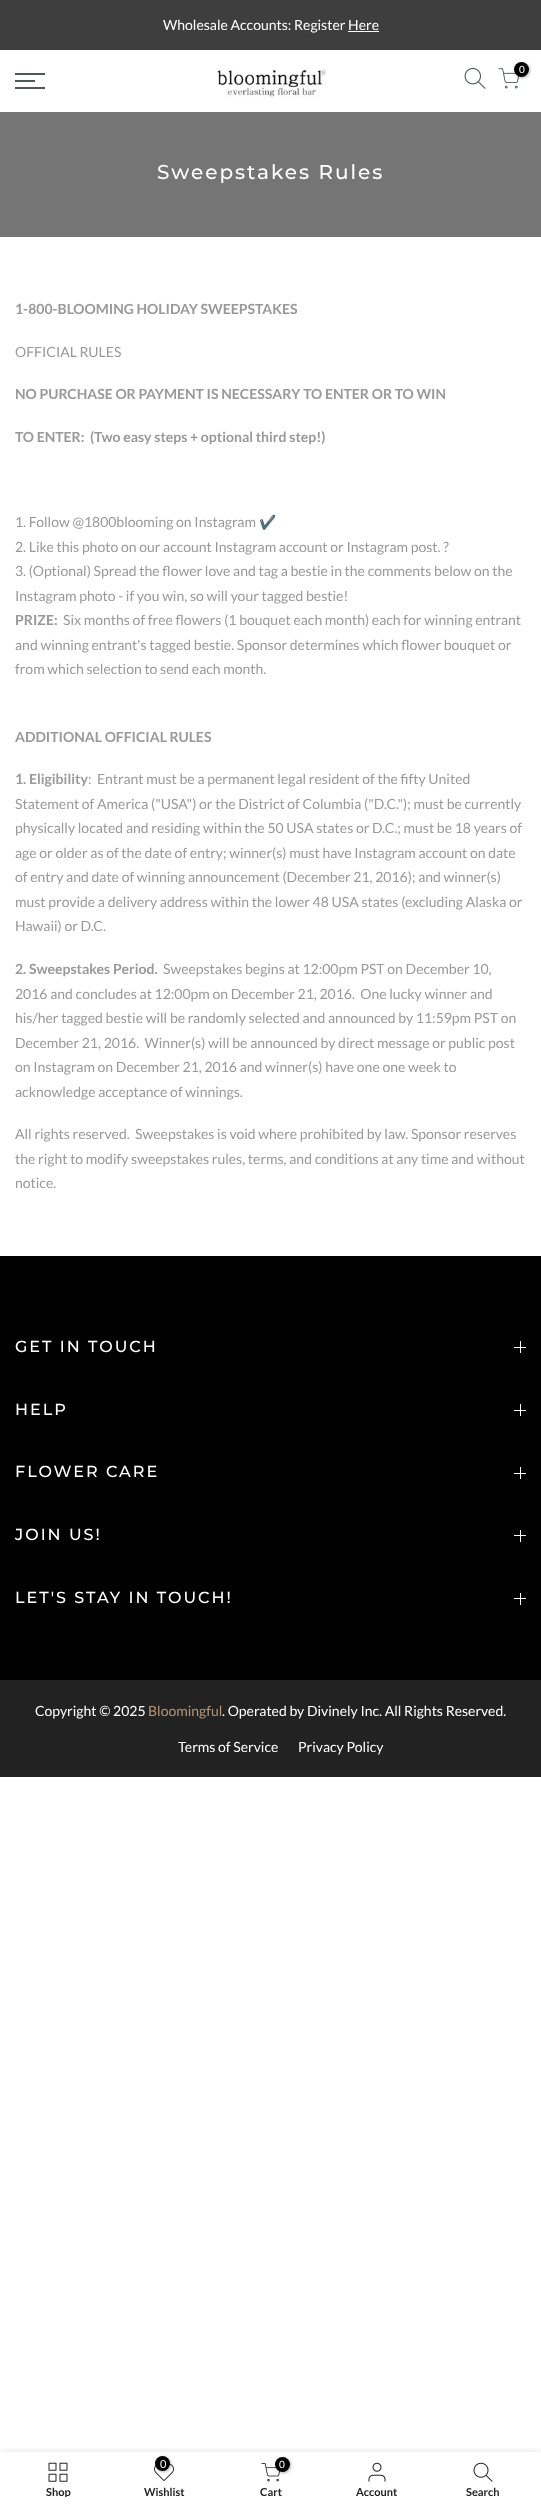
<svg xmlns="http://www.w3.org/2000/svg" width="541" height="2507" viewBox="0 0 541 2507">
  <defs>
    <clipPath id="clip1"><path d="M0 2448h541v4H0z"/></clipPath>
    <clipPath id="clip2"><path d="M15 2486h86v11H15z"/></clipPath>
  </defs>
  <rect width="100%" height="100%" fill="#fff"/>
  <path d="M0 0h541v50H0z" fill="#3e3e3e"/>
  <path d="M348 31h31v1H348z" fill="#fff"/>
  <path d="M15 73h30v2H15z" fill="#4d5959"/>
  <path d="M15 80h20v2H15z" fill="#4d5959"/>
  <path d="M15 87h30v2H15z" fill="#4d5959"/>
  <image x="216" y="69" width="110" height="29" href="img/1.png"/>
  <image x="464" y="67" width="22" height="22" href="img/2.png"/>
  <image x="498" y="68" width="21" height="21" href="img/3.png"/>
  <rect x="515" y="63" width="15" height="15" rx="7.5" fill="#0000004d" filter="blur(1.5px)"/>
  <circle cx="521.5" cy="69.5" r="7.5" fill="#000"/>
  <path d="M0 112h541v125H0z" fill="#757575"/>
  <path d="M0 1256h541v424H0z" fill="#000"/>
  <path d="M520 1341h1v12H520z" fill="#fff"/>
  <path d="M514 1347h12v1H514z" fill="#fff"/>
  <path d="M520 1404h1v12H520z" fill="#fff"/>
  <path d="M514 1410h12v1H514z" fill="#fff"/>
  <path d="M520 1467h1v12H520z" fill="#fff"/>
  <path d="M514 1473h12v1H514z" fill="#fff"/>
  <path d="M520 1530h1v12H520z" fill="#fff"/>
  <path d="M514 1535h12v1H514z" fill="#fff"/>
  <path d="M520 1593h1v12H520z" fill="#fff"/>
  <path d="M514 1598h12v1H514z" fill="#fff"/>
  <path d="M0 1680h541v97H0z" fill="#222"/>
  <g clip-path="url(#clip1)">
    <path d="M0 2452h541v55H0z" fill="#0000001f" filter="blur(4.5px)"/>
  </g>
  <image x="48" y="2462" width="20" height="20" href="img/4.png"/>
  <image x="154" y="2463" width="20" height="18" href="img/5.png"/>
  <rect x="156" y="2457" width="15" height="15" rx="7.5" fill="#0000004d" filter="blur(1.5px)"/>
  <circle cx="162.5" cy="2463.5" r="7.5" fill="#000"/>
  <image x="261" y="2463" width="19" height="19" href="img/6.png"/>
  <rect x="276" y="2458" width="15" height="15" rx="7.5" fill="#0000004d" filter="blur(1.5px)"/>
  <circle cx="282.5" cy="2464.5" r="7.5" fill="#000"/>
  <image x="368" y="2462" width="18" height="20" href="img/7.png"/>
  <image x="473" y="2462" width="20" height="20" href="img/8.png"/>
  <text x="163" y="30" font-family="Lato" font-size="14" fill="#fff">Wholesale Accounts: Register Here</text>
  <text x="519" y="73" font-family="Lato" font-size="10" fill="#fff">0</text>
  <text x="157" y="179" font-family="Montserrat" font-size="20" font-weight="500" letter-spacing="2" fill="#fff">Sweepstakes Rules</text>
  <text x="15" y="314" font-family="Lato" font-size="14" font-weight="bold" fill="#999">1-800-BLOOMING HOLIDAY SWEEPSTAKES</text>
  <text x="15" y="357" font-family="Lato" font-size="14" fill="#999">OFFICIAL RULES</text>
  <g font-family="Lato" font-size="14" font-weight="bold" fill="#999">
    <text x="15" y="399">NO PURCHASE OR PAYMENT IS NECESSARY TO ENTER OR TO WIN</text>
    <text x="15" y="442" xml:space="preserve">TO ENTER:  (Two easy steps + optional third step!)</text>
  </g>
  <text x="15" y="527" font-family="Lato" font-size="14" fill="#999">1. Follow @1800blooming on Instagram</text>
  <text x="259" y="527" font-family="Noto Color Emoji" font-size="14" fill="#999">✔️</text>
  <g font-family="Lato" font-size="14" fill="#999">
    <text x="15" y="552">2. Like this photo on our account Instagram account or Instagram post. ?</text>
    <text x="15" y="576">3. (Optional) Spread the flower love and tag a bestie in the comments below on the</text>
    <text x="15" y="601">Instagram photo - if you win, so will your tagged bestie!</text>
  </g>
  <text x="15" y="625" font-family="Lato" font-size="14" font-weight="bold" fill="#999">PRIZE:</text>
  <g font-family="Lato" font-size="14" fill="#999">
    <text x="63" y="625">Six months of free flowers (1 bouquet each month) each for winning entrant</text>
    <text x="15" y="650">and winning entrant's tagged bestie. Sponsor determines which flower bouquet or</text>
    <text x="15" y="674">from which selection to send each month.</text>
  </g>
  <g font-family="Lato" font-size="14" font-weight="bold" fill="#999">
    <text x="15" y="742">ADDITIONAL OFFICIAL RULES</text>
    <text x="15" y="784">1. Eligibility</text>
  </g>
  <g font-family="Lato" font-size="14" fill="#999">
    <text x="88" y="784" xml:space="preserve">:  Entrant must be a permanent legal resident of the fifty United</text>
    <text x="15" y="809">Statement of America ("USA") or the District of Columbia ("D.C."); must be currently</text>
    <text x="15" y="833">physically located and residing within the 50 USA states or D.C.; must be 18 years of</text>
    <text x="15" y="858">age or older as of the date of entry; winner(s) must have Instagram account on date</text>
    <text x="15" y="882">of entry and date of winning announcement (December 21, 2016); and winner(s)</text>
    <text x="15" y="907">must provide a delivery address within the lower 48 USA states (excluding Alaska or</text>
    <text x="15" y="931">Hawaii) or D.C.</text>
  </g>
  <text x="15" y="974" font-family="Lato" font-size="14" font-weight="bold" fill="#999">2. Sweepstakes Period.</text>
  <g font-family="Lato" font-size="14" fill="#999">
    <text x="163" y="974">Sweepstakes begins at 12:00pm PST on December 10,</text>
    <text x="15" y="999" xml:space="preserve">2016 and concludes at 12:00pm on December 21, 2016.  One lucky winner and</text>
    <text x="15" y="1023">his/her tagged bestie will be randomly selected and announced by 11:59pm PST on</text>
    <text x="15" y="1048" xml:space="preserve">December 21, 2016.  Winner(s) will be announced by direct message or public post</text>
    <text x="15" y="1072">on Instagram on December 21, 2016 and winner(s) have one one week to</text>
    <text x="15" y="1097">acknowledge acceptance of winnings.</text>
    <text x="15" y="1139" xml:space="preserve">All rights reserved.  Sweepstakes is void where prohibited by law. Sponsor reserves</text>
    <text x="15" y="1164">the right to modify sweepstakes rules, terms, and conditions at any time and without</text>
    <text x="15" y="1188">notice.</text>
  </g>
  <g font-family="Montserrat" font-size="16" font-weight="500" letter-spacing="2" fill="#fff">
    <text x="15" y="1352">GET IN TOUCH</text>
    <text x="15" y="1415">HELP</text>
    <text x="15" y="1477">FLOWER CARE</text>
    <text x="15" y="1540">JOIN US!</text>
    <text x="15" y="1603">LET'S STAY IN TOUCH!</text>
  </g>
  <text x="35" y="1716" font-family="Lato" font-size="14" fill="#fff">Copyright © 2025</text>
  <text x="148" y="1716" font-family="Lato" font-size="14" fill="#b59677">Bloomingful</text>
  <g font-family="Lato" font-size="14" fill="#fff">
    <text x="222" y="1716">. Operated by Divinely Inc. All Rights Reserved.</text>
    <text x="178" y="1752">Terms of Service</text>
    <text x="298" y="1752">Privacy Policy</text>
  </g>
  <g clip-path="url(#clip2)">
    <text x="46" y="2496" font-family="Lato" font-size="11" font-weight="bold" fill="#222">Shop</text>
  </g>
  <text x="160" y="2468" font-family="Lato" font-size="11" fill="#fff">0</text>
  <text x="144" y="2496" font-family="Lato" font-size="11" font-weight="bold" fill="#222">Wishlist</text>
  <text x="279" y="2468" font-family="Lato" font-size="10" fill="#fff">0</text>
  <g font-family="Lato" font-size="11" font-weight="bold" fill="#222">
    <text x="260" y="2496">Cart</text>
    <text x="356" y="2496">Account</text>
    <text x="466" y="2496">Search</text>
  </g>
</svg>
